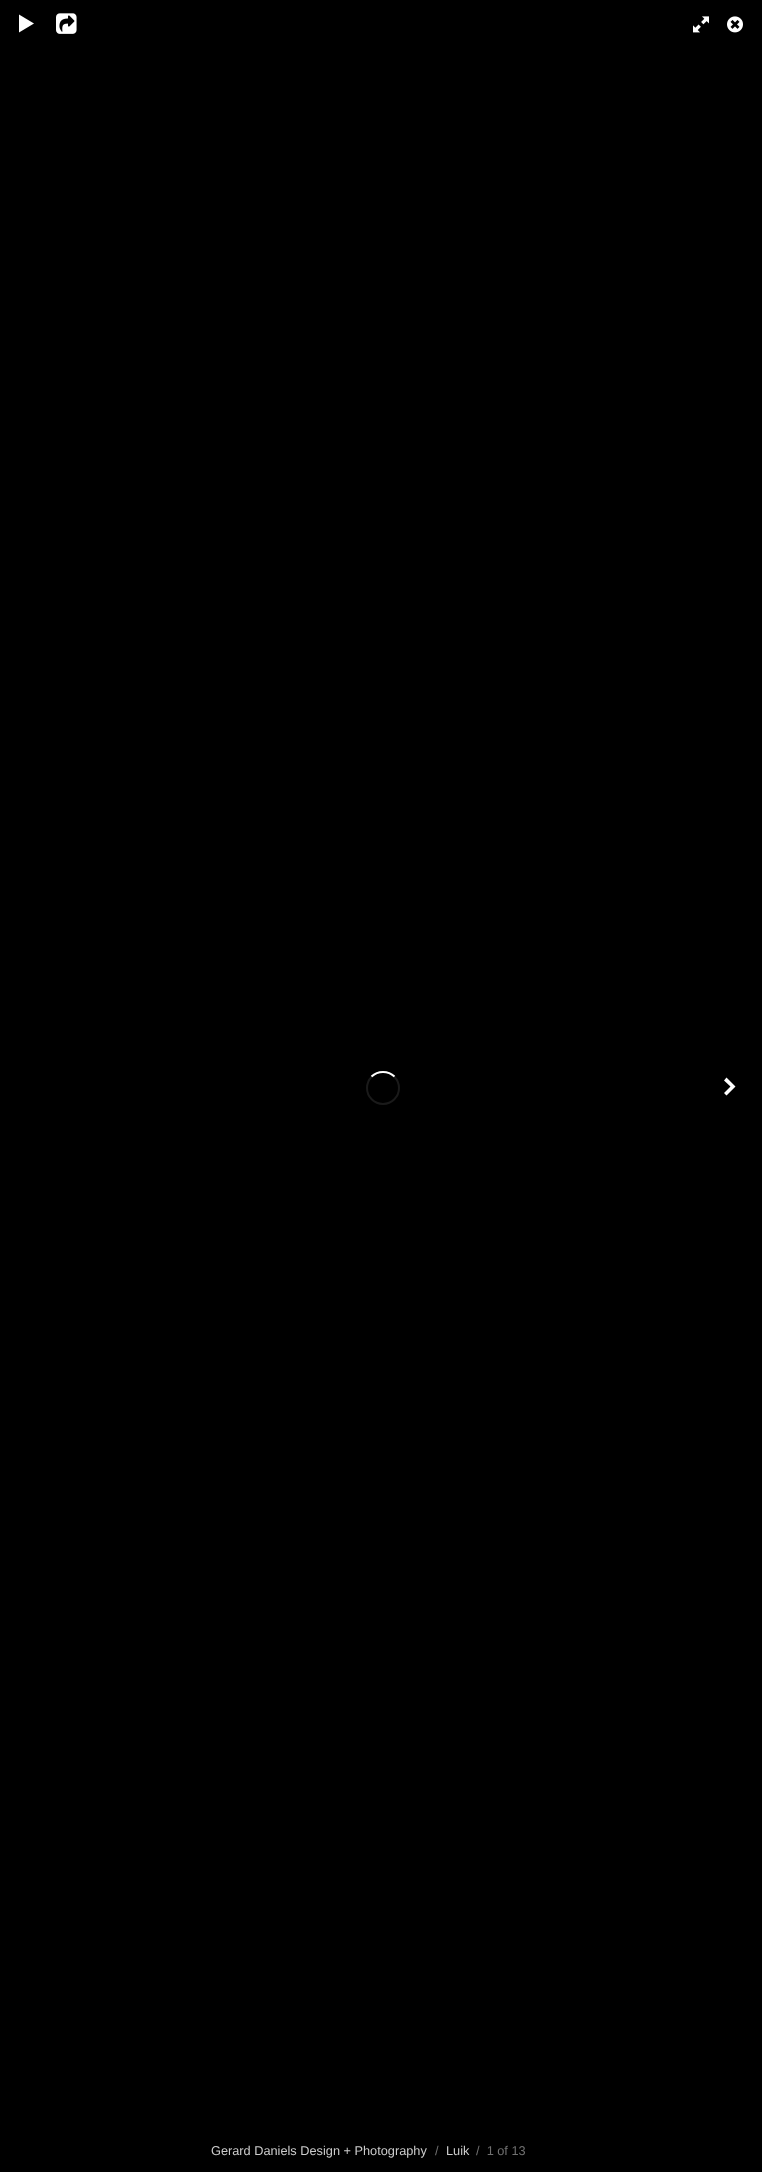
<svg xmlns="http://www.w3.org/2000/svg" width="762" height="2172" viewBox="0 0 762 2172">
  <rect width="100%" height="100%" fill="#000"/>
  <path d="M19 32.5V14.5L34 23.5Z" fill="#fff"/>
  <image x="56" y="13" width="21" height="21" href="img/1.png"/>
  <image x="693" y="16" width="16" height="17" href="img/2.png"/>
  <image x="727" y="16" width="16" height="17" href="img/3.png"/>
  <circle cx="383" cy="1088" r="16" fill="none" stroke="#1a1a1a" stroke-width="2"/>
  <path d="M371.5 1076.5C378 1070.5 388 1070.5 394.5 1076.5" fill="none" stroke="#fff" stroke-width="2"/>
  <path d="M724 1093L730.5 1086.5L724 1080.5L726.5 1077.5L735.5 1086.5L726.5 1095.5Z" fill="#fff"/>
  <text x="211" y="2155" font-family="Liberation Sans" font-size="12.75" fill="#ccc">Gerard Daniels Design + Photography</text>
  <text x="435" y="2155" font-family="Liberation Sans" font-size="12.75" fill="#707070">/</text>
  <text x="446" y="2155" font-family="Liberation Sans" font-size="12.75" fill="#ccc">Luik</text>
  <text x="476" y="2155" font-family="Liberation Sans" font-size="12.75" fill="#707070" xml:space="preserve">/  1 of 13</text>
</svg>
